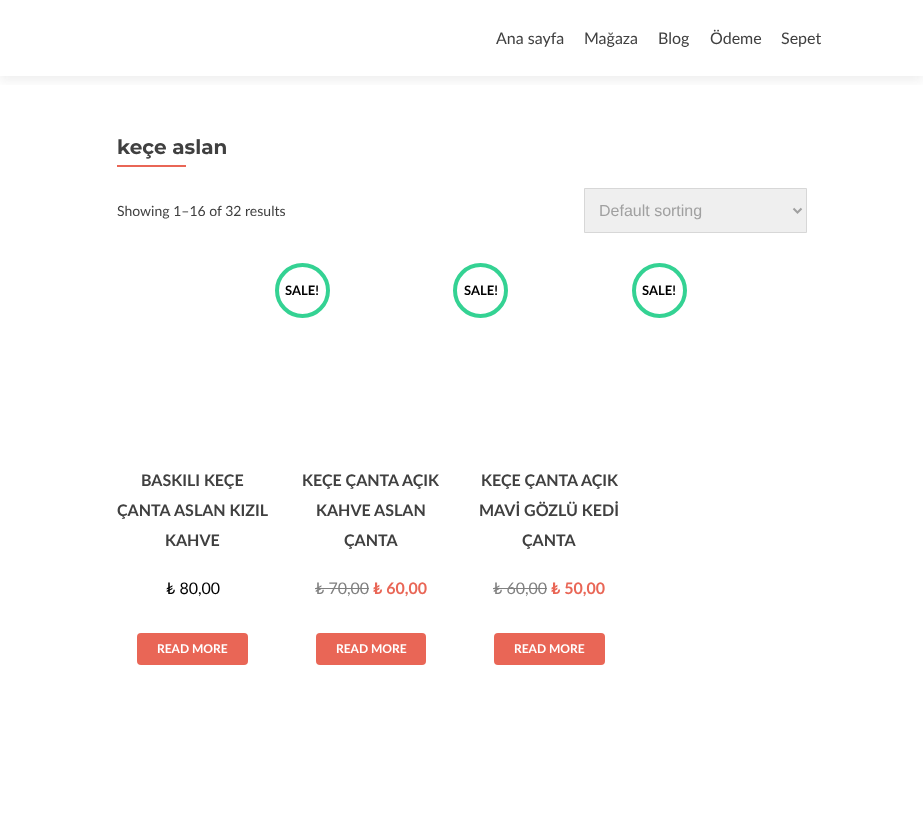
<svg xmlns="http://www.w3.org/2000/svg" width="923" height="819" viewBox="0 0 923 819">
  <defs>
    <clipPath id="clip1"><path d="M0 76h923v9H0z"/></clipPath>
  </defs>
  <rect width="100%" height="100%" fill="#fff"/>
  <g clip-path="url(#clip1)">
    <path d="M0 5h923v76H0z" fill="#32323214" filter="blur(5.5px)"/>
  </g>
  <path d="M117 165h69v2H117z" fill="#e96656"/>
  <path d="M584.5 188.5h222v44H584.5z" fill="#efefef" stroke="#d7d7d7"/>
  <path d="M793.5 208.5L797.5 212.5L801.5 208.5" fill="none" stroke="#a0a0a0" stroke-width="2"/>
  <circle cx="302.5" cy="290.5" r="25.5" fill="none" stroke="#34d293" stroke-width="4"/>
  <path d="M315 588h54v1H315z" fill="#808080"/>
  <rect x="316" y="633" width="110" height="32" rx="4" fill="#e96656"/>
  <circle cx="480.5" cy="290.5" r="25.5" fill="none" stroke="#34d293" stroke-width="4"/>
  <path d="M493 588h54v1H493z" fill="#808080"/>
  <rect x="494" y="633" width="111" height="32" rx="4" fill="#e96656"/>
  <circle cx="659.5" cy="290.5" r="25.5" fill="none" stroke="#34d293" stroke-width="4"/>
  <rect x="137" y="633" width="111" height="32" rx="4" fill="#e96656"/>
  <g font-family="Lato" font-size="16" fill="#404040">
    <text x="496" y="44">Ana sayfa</text>
    <text x="584" y="44">Mağaza</text>
    <text x="658" y="44">Blog</text>
    <text x="710" y="44">Ödeme</text>
    <text x="781" y="44">Sepet</text>
  </g>
  <text x="117" y="154" font-family="Montserrat" font-size="20" font-weight="bold" fill="#404040">keçe aslan</text>
  <text x="117" y="216" font-family="Lato" font-size="14" fill="#404040">Showing 1–16 of 32 results</text>
  <text x="599" y="216" font-family="Liberation Sans" font-size="16" fill="#a0a0a0">Default sorting</text>
  <text x="285" y="295" font-family="Lato" font-size="13" font-weight="bold" fill="#000">SALE!</text>
  <g font-family="Lato" font-size="16" font-weight="bold" fill="#404040">
    <text x="302" y="486">KEÇE ÇANTA AÇIK</text>
    <text x="316" y="516">KAHVE ASLAN</text>
    <text x="344" y="546">ÇANTA</text>
  </g>
  <text x="315" y="594" font-family="Lato" font-size="16" fill="#808080">₺ 70,00</text>
  <text x="373" y="594" font-family="Lato" font-size="16" font-weight="bold" fill="#e96656">₺ 60,00</text>
  <text x="336" y="653" font-family="Lato" font-size="12" font-weight="bold" fill="#fff">READ MORE</text>
  <text x="464" y="295" font-family="Lato" font-size="13" font-weight="bold" fill="#000">SALE!</text>
  <g font-family="Lato" font-size="16" font-weight="bold" fill="#404040">
    <text x="481" y="486">KEÇE ÇANTA AÇIK</text>
    <text x="479" y="516">MAVİ GÖZLÜ KEDİ</text>
    <text x="522" y="546">ÇANTA</text>
  </g>
  <text x="493" y="594" font-family="Lato" font-size="16" fill="#808080">₺ 60,00</text>
  <text x="551" y="594" font-family="Lato" font-size="16" font-weight="bold" fill="#e96656">₺ 50,00</text>
  <text x="514" y="653" font-family="Lato" font-size="12" font-weight="bold" fill="#fff">READ MORE</text>
  <text x="642" y="295" font-family="Lato" font-size="13" font-weight="bold" fill="#000">SALE!</text>
  <g font-family="Lato" font-size="16" font-weight="bold" fill="#404040">
    <text x="141" y="486">BASKILI KEÇE</text>
    <text x="117" y="516">ÇANTA</text>
    <text x="174" y="516">ASLAN KIZIL</text>
    <text x="165" y="546">KAHVE</text>
  </g>
  <text x="166" y="594" font-family="Lato" font-size="16" fill="#000">₺ 80,00</text>
  <text x="157" y="653" font-family="Lato" font-size="12" font-weight="bold" fill="#fff">READ MORE</text>
</svg>
